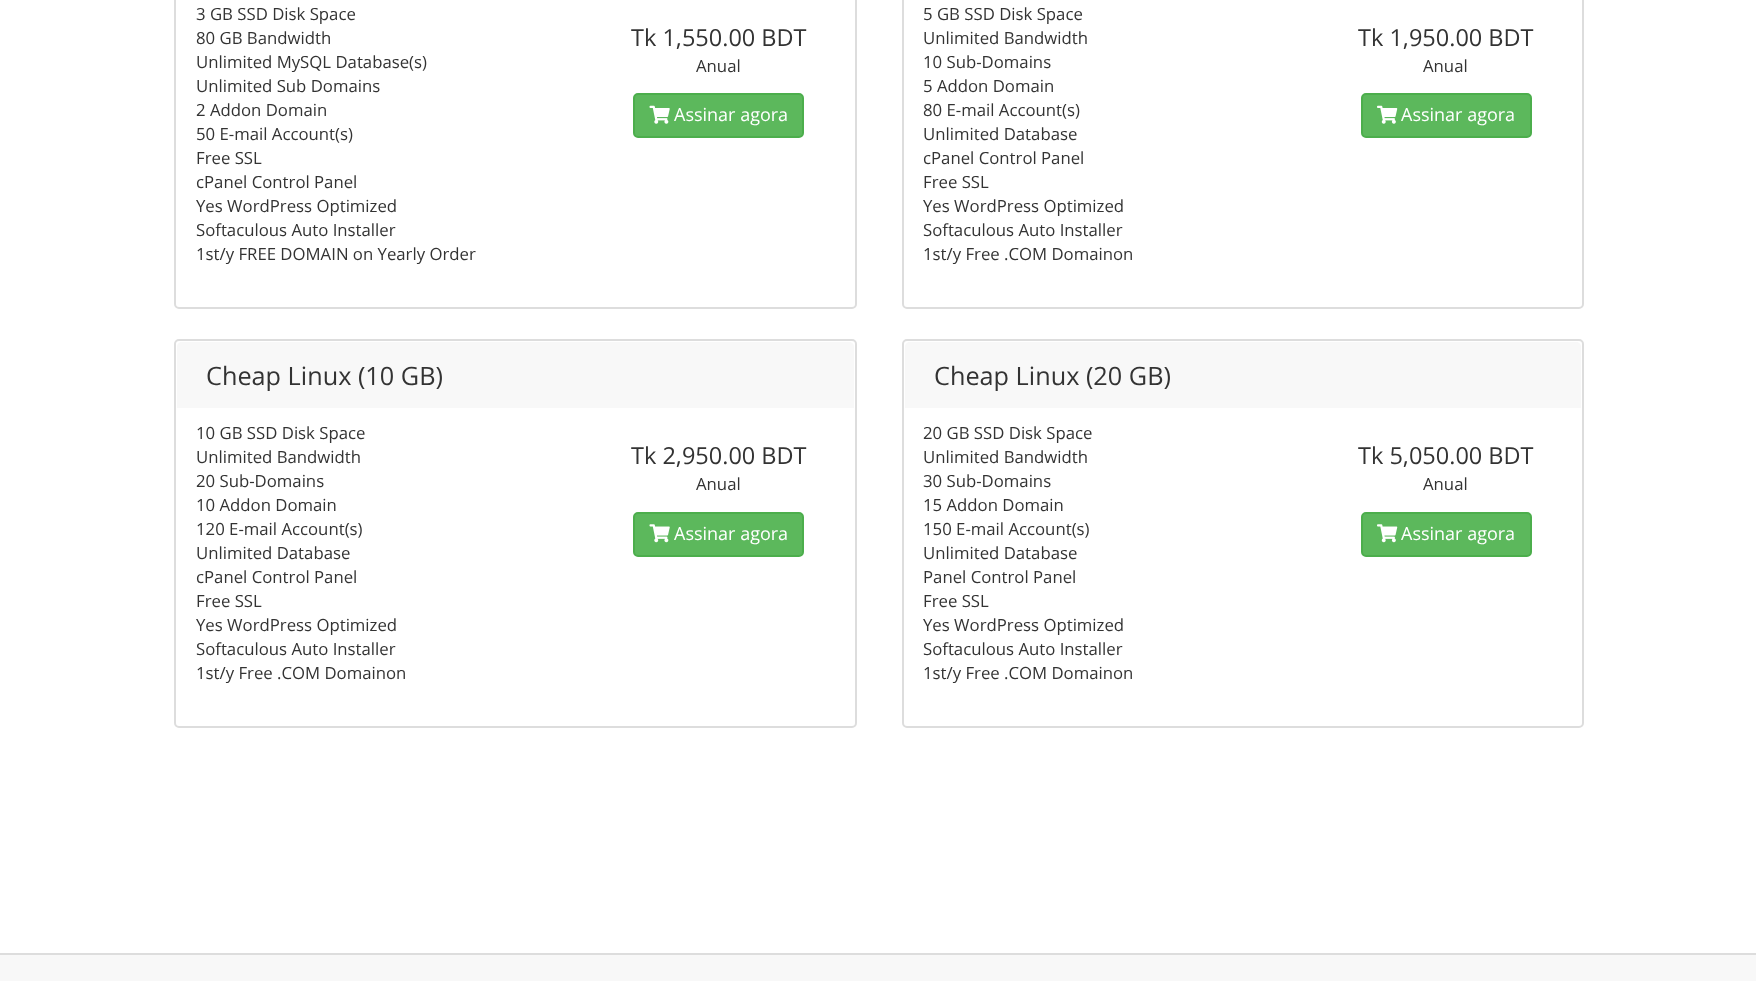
<svg xmlns="http://www.w3.org/2000/svg" width="1756" height="981" viewBox="0 0 1756 981">
  <rect width="100%" height="100%" fill="#f8f8f8"/>
  <path d="M0 0h1756v953H0z" fill="#fff"/>
  <rect x="175" y="-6" width="681" height="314" rx="4" fill="none" stroke="#ddd" stroke-width="2"/>
  <rect x="634" y="94" width="169" height="43" rx="4" fill="#5cb85c" stroke="#4cae4c" stroke-width="2"/>
  <image x="649" y="105" width="21" height="19" href="img/1.png"/>
  <rect x="903" y="-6" width="680" height="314" rx="4" fill="none" stroke="#ddd" stroke-width="2"/>
  <rect x="1362" y="94" width="169" height="43" rx="4" fill="#5cb85c" stroke="#4cae4c" stroke-width="2"/>
  <image x="1377" y="105" width="21" height="19" href="img/2.png"/>
  <rect x="175" y="340" width="681" height="387" rx="4" fill="none" stroke="#ddd" stroke-width="2"/>
  <path d="M182 342H849C852 342 854 344 854 347V408H177V347C177 344 179 342 182 342Z" fill="#f8f8f8"/>
  <rect x="634" y="513" width="169" height="43" rx="4" fill="#5cb85c" stroke="#4cae4c" stroke-width="2"/>
  <image x="649" y="524" width="21" height="19" href="img/3.png"/>
  <rect x="903" y="340" width="680" height="387" rx="4" fill="none" stroke="#ddd" stroke-width="2"/>
  <path d="M910 342H1576C1579 342 1581 344 1581 347V408H905V347C905 344 907 342 910 342Z" fill="#f8f8f8"/>
  <rect x="1362" y="513" width="169" height="43" rx="4" fill="#5cb85c" stroke="#4cae4c" stroke-width="2"/>
  <image x="1377" y="524" width="21" height="19" href="img/4.png"/>
  <path d="M0 953h1756v2H0z" fill="#ddd"/>
  <g font-family="Open Sans" font-size="16.75" fill="#333">
    <text x="196" y="20">3 GB SSD Disk Space</text>
    <text x="196" y="44">80 GB Bandwidth</text>
    <text x="196" y="68">Unlimited MySQL Database(s)</text>
    <text x="196" y="92">Unlimited Sub Domains</text>
    <text x="196" y="116">2 Addon Domain</text>
    <text x="196" y="140">50 E-mail Account(s)</text>
    <text x="196" y="164">Free SSL</text>
    <text x="196" y="188">cPanel Control Panel</text>
    <text x="196" y="212">Yes WordPress Optimized</text>
    <text x="196" y="236">Softaculous Auto Installer</text>
    <text x="196" y="260">1st/y FREE DOMAIN on Yearly Order</text>
  </g>
  <text x="631" y="46" font-family="Open Sans" font-size="23.5" fill="#333">Tk 1,550.00 BDT</text>
  <text x="696" y="72" font-family="Open Sans" font-size="16.75" fill="#333">Anual</text>
  <text x="674" y="121" font-family="Open Sans" font-size="18" fill="#fff">Assinar agora</text>
  <g font-family="Open Sans" font-size="16.75" fill="#333">
    <text x="923" y="20">5 GB SSD Disk Space</text>
    <text x="923" y="44">Unlimited Bandwidth</text>
    <text x="923" y="68">10 Sub-Domains</text>
    <text x="923" y="92">5 Addon Domain</text>
    <text x="923" y="116">80 E-mail Account(s)</text>
    <text x="923" y="140">Unlimited Database</text>
    <text x="923" y="164">cPanel Control Panel</text>
    <text x="923" y="188">Free SSL</text>
    <text x="923" y="212">Yes WordPress Optimized</text>
    <text x="923" y="236">Softaculous Auto Installer</text>
    <text x="923" y="260">1st/y Free .COM Domainon</text>
  </g>
  <text x="1358" y="46" font-family="Open Sans" font-size="23.5" fill="#333">Tk 1,950.00 BDT</text>
  <text x="1423" y="72" font-family="Open Sans" font-size="16.75" fill="#333">Anual</text>
  <text x="1401" y="121" font-family="Open Sans" font-size="18" fill="#fff">Assinar agora</text>
  <text x="206" y="385" font-family="Open Sans" font-size="25.25" fill="#333">Cheap Linux (10 GB)</text>
  <g font-family="Open Sans" font-size="16.75" fill="#333">
    <text x="196" y="439">10 GB SSD Disk Space</text>
    <text x="196" y="463">Unlimited Bandwidth</text>
    <text x="196" y="487">20 Sub-Domains</text>
    <text x="196" y="511">10 Addon Domain</text>
    <text x="196" y="535">120 E-mail Account(s)</text>
    <text x="196" y="559">Unlimited Database</text>
    <text x="196" y="583">cPanel Control Panel</text>
    <text x="196" y="607">Free SSL</text>
    <text x="196" y="631">Yes WordPress Optimized</text>
    <text x="196" y="655">Softaculous Auto Installer</text>
    <text x="196" y="679">1st/y Free .COM Domainon</text>
  </g>
  <text x="631" y="464" font-family="Open Sans" font-size="23.5" fill="#333">Tk 2,950.00 BDT</text>
  <text x="696" y="490" font-family="Open Sans" font-size="16.75" fill="#333">Anual</text>
  <text x="674" y="540" font-family="Open Sans" font-size="18" fill="#fff">Assinar agora</text>
  <text x="934" y="385" font-family="Open Sans" font-size="25.25" fill="#333">Cheap Linux (20 GB)</text>
  <g font-family="Open Sans" font-size="16.75" fill="#333">
    <text x="923" y="439">20 GB SSD Disk Space</text>
    <text x="923" y="463">Unlimited Bandwidth</text>
    <text x="923" y="487">30 Sub-Domains</text>
    <text x="923" y="511">15 Addon Domain</text>
    <text x="923" y="535">150 E-mail Account(s)</text>
    <text x="923" y="559">Unlimited Database</text>
    <text x="923" y="583">Panel Control Panel</text>
    <text x="923" y="607">Free SSL</text>
    <text x="923" y="631">Yes WordPress Optimized</text>
    <text x="923" y="655">Softaculous Auto Installer</text>
    <text x="923" y="679">1st/y Free .COM Domainon</text>
  </g>
  <text x="1358" y="464" font-family="Open Sans" font-size="23.5" fill="#333">Tk 5,050.00 BDT</text>
  <text x="1423" y="490" font-family="Open Sans" font-size="16.75" fill="#333">Anual</text>
  <text x="1401" y="540" font-family="Open Sans" font-size="18" fill="#fff">Assinar agora</text>
</svg>
